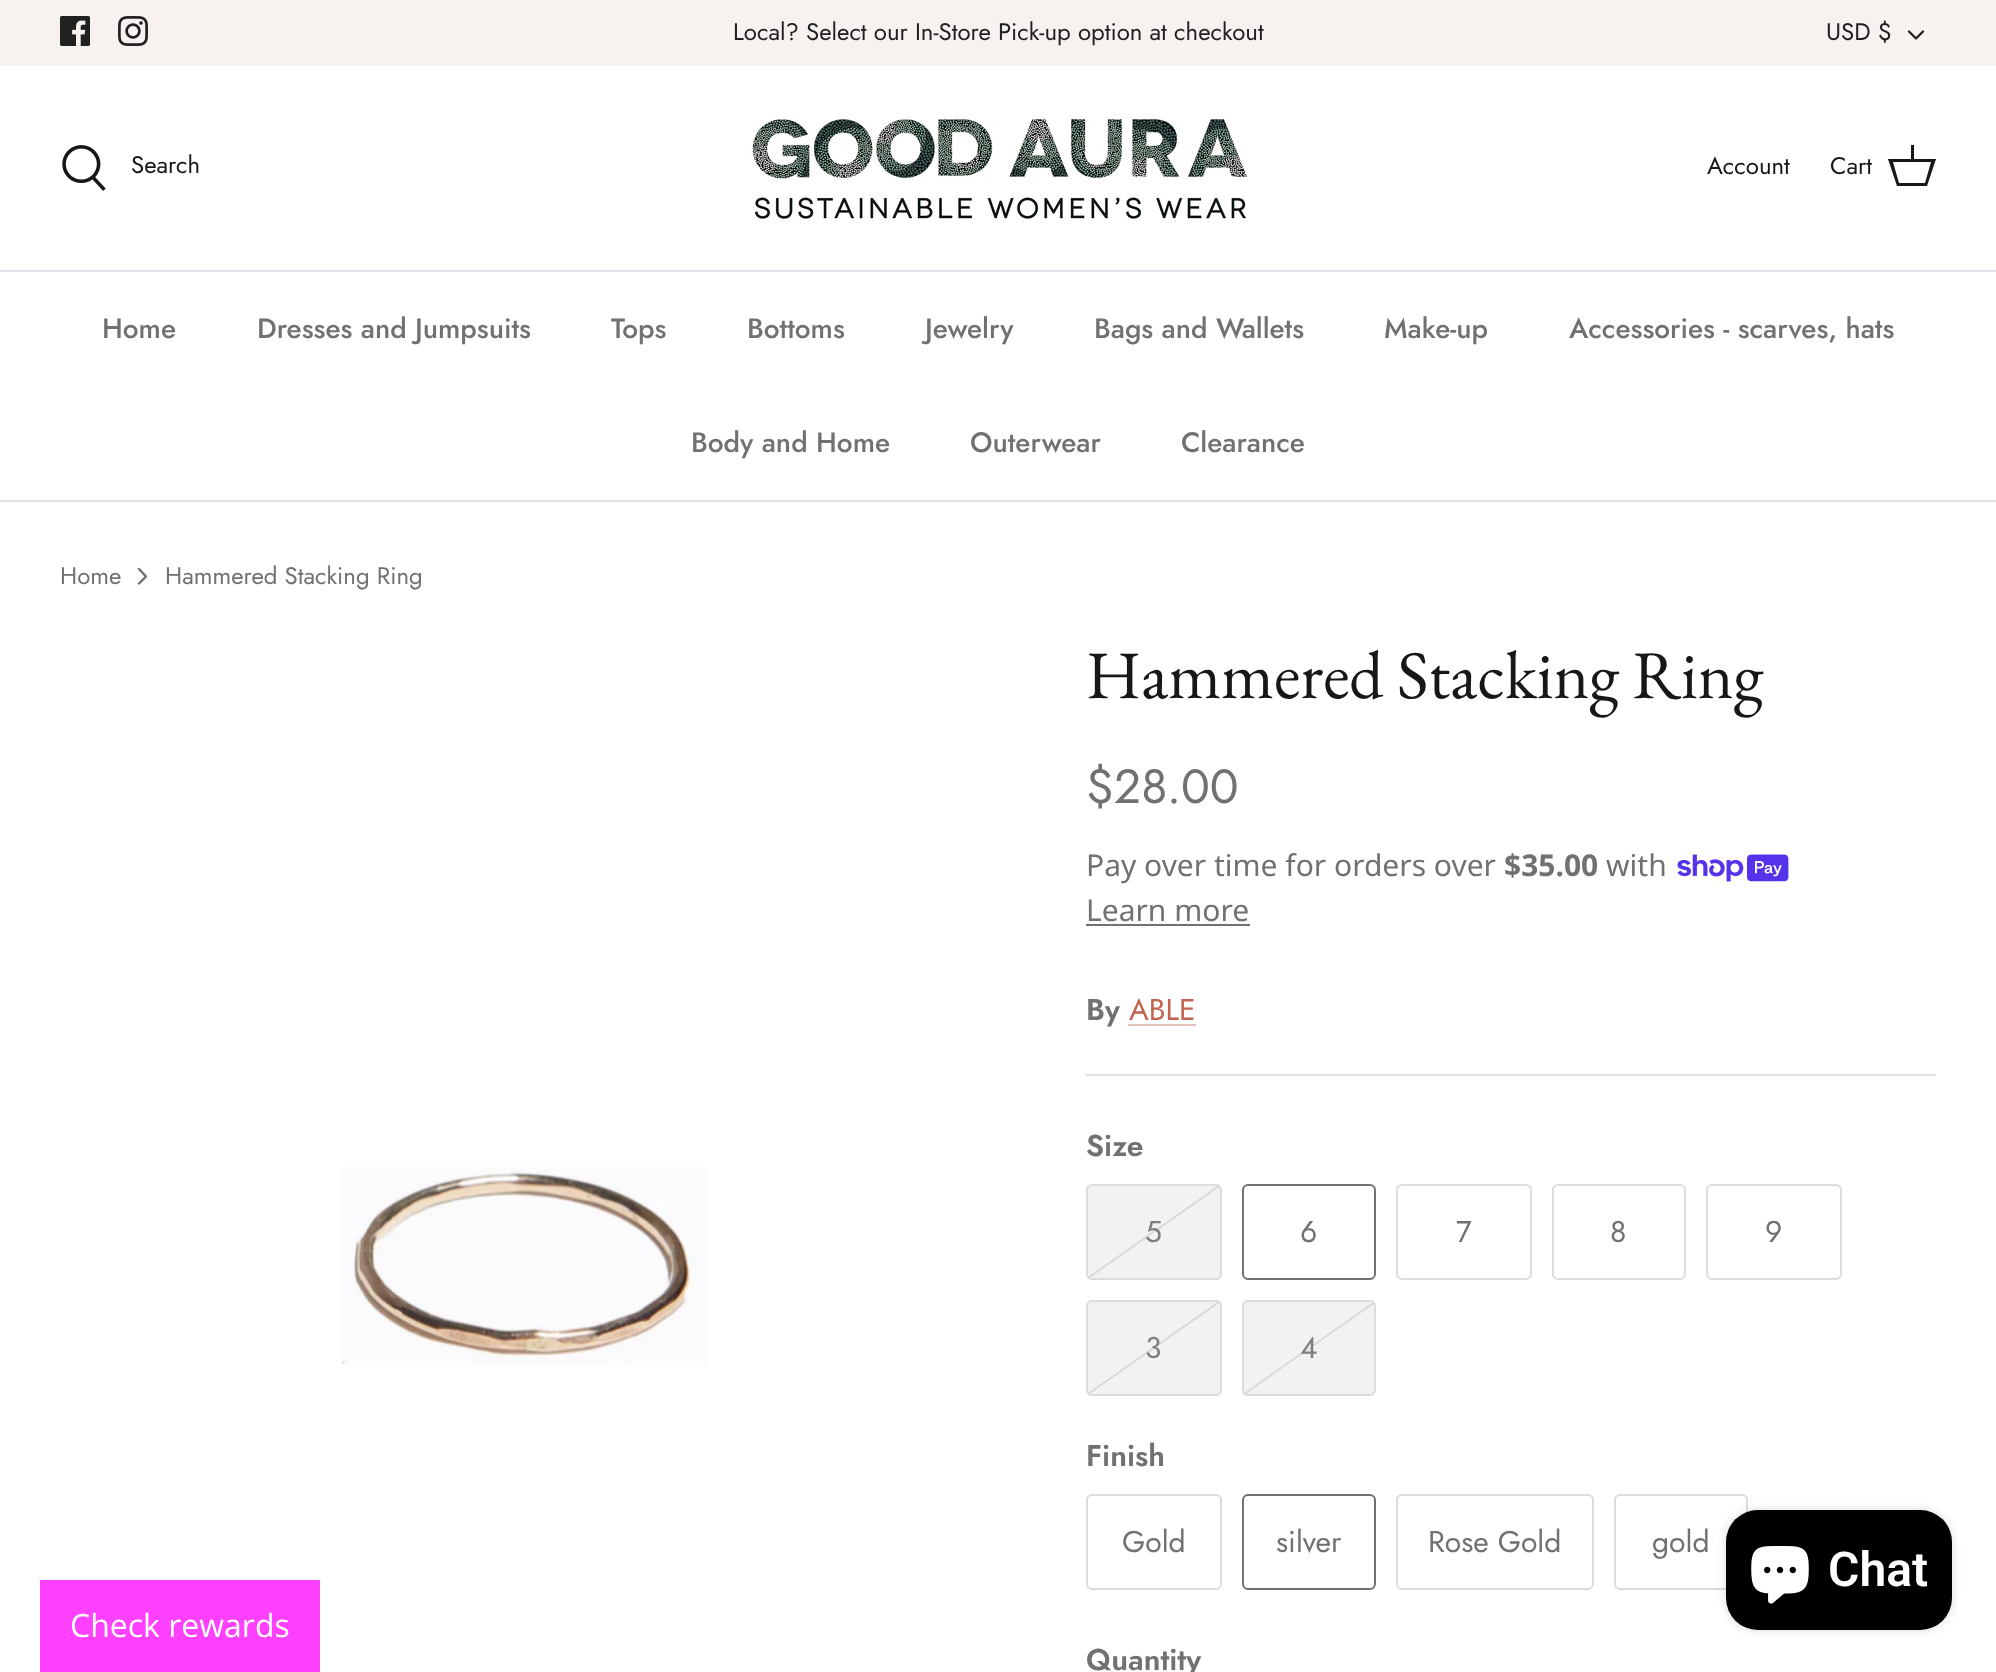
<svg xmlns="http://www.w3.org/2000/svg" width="1996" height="1672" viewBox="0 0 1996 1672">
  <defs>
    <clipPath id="clip1"><path d="M1244 1302h130v92H1244z"/></clipPath>
  </defs>
  <rect width="100%" height="100%" fill="#fff"/>
  <path d="M0 0h1996v66H0z" fill="#f7f1f0"/>
  <image x="60" y="16" width="30" height="30" href="img/1.png"/>
  <image x="118" y="16" width="30" height="30" href="img/2.png"/>
  <path d="M1909 31.5L1916 38.5L1923 31.5" fill="none" stroke="#212121" stroke-width="2.3" stroke-linecap="round" stroke-linejoin="round"/>
  <path d="M0 270h1996v2H0z" fill="#dfe3e8"/>
  <image x="62" y="145" width="44" height="46" href="img/3.png"/>
  <image x="750" y="117" width="499" height="105" href="img/4.png"/>
  <path d="M1911 159V145H1914V159H1936L1927 186H1897L1888 159ZM1893 162L1899 183H1925L1931 162Z" fill="#171717"/>
  <path d="M0 500h1996v2H0z" fill="#dfe3e8"/>
  <path d="M139 583.5L146 576.5L139 569" fill="none" stroke="#707173" stroke-width="2.4" stroke-linecap="round" stroke-linejoin="round"/>
  <image x="341" y="1167" width="366" height="199" href="img/5.png"/>
  <image x="1677" y="854" width="112" height="28" href="img/6.png"/>
  <path d="M1086 924h164v2H1086z" fill="#707173"/>
  <path d="M1128 1024h68v2H1128z" fill="#e6c1ba"/>
  <path d="M1086 1074h850v2H1086z" fill="#e2e2e2"/>
  <rect x="1086" y="1184" width="136" height="96" rx="6" fill="#f2f2f2"/>
  <path d="M1219 1186L1088 1278" fill="none" stroke="#d8d8d9" stroke-width="1.8"/>
  <rect x="1087" y="1185" width="134" height="94" rx="5" fill="none" stroke="#dbdcdc" stroke-width="2"/>
  <rect x="1243" y="1185" width="132" height="94" rx="5" fill="none" stroke="#707173" stroke-width="2"/>
  <rect x="1397" y="1185" width="134" height="94" rx="5" fill="none" stroke="#dbdcdc" stroke-width="2"/>
  <rect x="1553" y="1185" width="132" height="94" rx="5" fill="none" stroke="#dbdcdc" stroke-width="2"/>
  <rect x="1707" y="1185" width="134" height="94" rx="5" fill="none" stroke="#dbdcdc" stroke-width="2"/>
  <rect x="1086" y="1300" width="136" height="96" rx="6" fill="#f2f2f2"/>
  <path d="M1219 1302L1088 1394" fill="none" stroke="#d8d8d9" stroke-width="1.8"/>
  <rect x="1087" y="1301" width="134" height="94" rx="5" fill="none" stroke="#dbdcdc" stroke-width="2"/>
  <rect x="1242" y="1300" width="134" height="96" rx="6" fill="#f2f2f2"/>
  <g clip-path="url(#clip1)">
    <path d="M1375 1302L1244 1394" fill="none" stroke="#d8d8d9" stroke-width="1.8"/>
  </g>
  <rect x="1243" y="1301" width="132" height="94" rx="5" fill="none" stroke="#dbdcdc" stroke-width="2"/>
  <rect x="1087" y="1495" width="134" height="94" rx="5" fill="none" stroke="#dbdcdc" stroke-width="2"/>
  <rect x="1243" y="1495" width="132" height="94" rx="5" fill="none" stroke="#707173" stroke-width="2"/>
  <rect x="1397" y="1495" width="196" height="94" rx="5" fill="none" stroke="#dbdcdc" stroke-width="2"/>
  <rect x="1615" y="1495" width="132" height="94" rx="5" fill="none" stroke="#dbdcdc" stroke-width="2"/>
  <rect x="1726" y="1510" width="226" height="120" rx="32" fill="#00000026" filter="blur(5px)"/>
  <rect x="1726" y="1510" width="226" height="120" rx="32" fill="#000"/>
  <image x="1751" y="1546" width="58" height="58" href="img/7.png"/>
  <path d="M40 1580h280v92H40z" fill="#ff40ff"/>
  <g font-family="Jost" font-size="24" fill="#212121">
    <text x="733" y="40">Local? Select our In-Store Pick-up option at checkout</text>
    <text x="1826" y="40">USD $</text>
  </g>
  <g font-family="Jost" font-size="24" fill="#171717">
    <text x="131" y="173">Search</text>
    <text x="1707" y="174">Account</text>
    <text x="1830" y="174">Cart</text>
  </g>
  <g font-family="Jost" font-size="28" font-weight="500" fill="#707173">
    <text x="102" y="338">Home</text>
    <text x="257" y="338">Dresses and Jumpsuits</text>
    <text x="611" y="338">Tops</text>
    <text x="747" y="338">Bottoms</text>
    <text x="925" y="338">Jewelry</text>
    <text x="1094" y="338">Bags and Wallets</text>
    <text x="1384" y="338">Make-up</text>
    <text x="1569" y="338">Accessories - scarves, hats</text>
    <text x="691" y="452">Body and Home</text>
    <text x="970" y="452">Outerwear</text>
    <text x="1181" y="452">Clearance</text>
  </g>
  <g font-family="Jost" font-size="24" fill="#707173">
    <text x="60" y="584">Home</text>
    <text x="165" y="584">Hammered Stacking Ring</text>
  </g>
  <text x="1086" y="698" font-family="EB Garamond" font-size="68" fill="#171717">Hammered Stacking Ring</text>
  <text x="1086" y="803" font-family="Jost" font-size="48" fill="#707173">$28.00</text>
  <text x="1086" y="876" font-family="Noto Sans" font-size="30" fill="#707173">Pay over time for orders over</text>
  <text x="1504" y="876" font-family="Noto Sans" font-size="30" font-weight="bold" fill="#707173">$35.00</text>
  <g font-family="Noto Sans" font-size="30" fill="#707173">
    <text x="1606" y="876">with</text>
    <text x="1086" y="921">Learn more</text>
  </g>
  <text x="1086" y="1020" font-family="Jost" font-size="30" font-weight="600" fill="#707173">By</text>
  <text x="1129" y="1020" font-family="Jost" font-size="30" fill="#c16452">ABLE</text>
  <text x="1086" y="1156" font-family="Jost" font-size="30" font-weight="600" fill="#707173">Size</text>
  <text x="1145" y="1242" font-family="Jost" font-size="30" fill="#7d7e80">5</text>
  <g font-family="Jost" font-size="30" fill="#707173">
    <text x="1300" y="1242">6</text>
    <text x="1456" y="1242">7</text>
    <text x="1610" y="1242">8</text>
    <text x="1765" y="1242">9</text>
  </g>
  <g font-family="Jost" font-size="30" fill="#7d7e80">
    <text x="1145" y="1358">3</text>
    <text x="1300" y="1358">4</text>
  </g>
  <text x="1086" y="1466" font-family="Jost" font-size="30" font-weight="600" fill="#707173">Finish</text>
  <g font-family="Jost" font-size="30" fill="#707173">
    <text x="1122" y="1552">Gold</text>
    <text x="1276" y="1552">silver</text>
    <text x="1428" y="1552">Rose Gold</text>
    <text x="1652" y="1552">gold</text>
  </g>
  <text x="1086" y="1670" font-family="Jost" font-size="30" font-weight="600" fill="#707173">Quantity</text>
  <text x="1828" y="1586" font-family="Roboto" font-size="48" font-weight="600" fill="#fff">Chat</text>
  <text x="70" y="1637" font-family="Open Sans" font-size="32" fill="#fff">Check rewards</text>
</svg>
